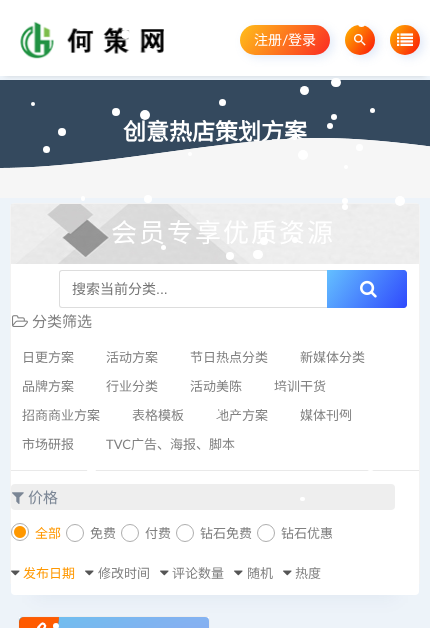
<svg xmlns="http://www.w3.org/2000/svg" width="430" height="628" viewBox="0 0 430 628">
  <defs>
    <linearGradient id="g1" gradientUnits="userSpaceOnUse" x1="343" y1="28" x2="377" y2="52"><stop offset="0" stop-color="#ffb800"/><stop offset="1" stop-color="#fb130a"/></linearGradient>
    <linearGradient id="g2" gradientUnits="userSpaceOnUse" x1="248" y1="14" x2="322" y2="66"><stop offset="0" stop-color="#ffbf1a"/><stop offset="1" stop-color="#fb2b23"/></linearGradient>
    <linearGradient id="g3" gradientUnits="userSpaceOnUse" x1="388" y1="28" x2="422" y2="52"><stop offset="0" stop-color="#ffb800"/><stop offset="1" stop-color="#fb130a"/></linearGradient>
    <linearGradient id="g4" gradientUnits="userSpaceOnUse" x1="331" y1="264" x2="403" y2="314"><stop offset="0" stop-color="#64c0ff"/><stop offset="1" stop-color="#2f49fd"/></linearGradient>
  </defs>
  <rect width="100%" height="100%" fill="#edf3f9"/>
  <path d="M0 80h430v88H0z" fill="#34495e"/>
  <path d="M5 10h420v66H5z" fill="#0000001f" filter="blur(2.5px)"/>
  <path d="M0 0h430v76H0z" fill="#fff"/>
  <rect x="349" y="28" width="30" height="30" rx="15" fill="#2f6bd024" filter="blur(5px)"/>
  <circle cx="360" cy="40" r="15" fill="url(#g1)"/>
  <circle cx="361.5" cy="23.5" r="3.5" fill="#fff"/>
  <image x="20" y="21" width="144" height="38" href="img/1.png"/>
  <circle cx="125.5" cy="34.5" r="4.5" fill="#fff"/>
  <rect x="244" y="28" width="90" height="30" rx="15" fill="#2f6bd021" filter="blur(5px)"/>
  <rect x="240" y="25" width="90" height="30" rx="15" fill="url(#g2)"/>
  <image x="354" y="34" width="12" height="12" href="img/2.png"/>
  <rect x="394" y="28" width="30" height="30" rx="15" fill="#2f6bd024" filter="blur(5px)"/>
  <circle cx="405" cy="40" r="15" fill="url(#g3)"/>
  <image x="397" y="33" width="16" height="13" href="img/3.png"/>
  <rect x="18.5" y="616.5" width="191" height="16" rx="3.5" fill="none" stroke="#eee"/>
  <path d="M19 617h190v4H19z" fill="#fff"/>
  <image x="19" y="617" width="190" height="11" href="img/12.png"/>
  <image x="19" y="617" width="40" height="11" href="img/13.png"/>
  <path d="M34 261h362v335H34z" fill="#0024640f" filter="blur(10px)"/>
  <rect x="10.5" y="203.5" width="409" height="382" rx="3.5" fill="#fff" stroke="#f3f3f3"/>
  <image x="11" y="204" width="408" height="60" href="img/6.png"/>
  <rect x="11" y="274" width="408" height="321" rx="4" fill="#fff"/>
  <path d="M62 270H327V308H62C60 308 59 307 59 305V273C59 271 60 270 62 270ZM62 271H327V307H62C61 307 60 306 60 305V273C60 272 61 271 62 271Z" fill="#ddd" fill-rule="evenodd"/>
  <path d="M327 270H404C405.5 270 407 271.5 407 273V305C407 306.5 405.5 308 404 308H327Z" fill="url(#g4)"/>
  <image x="360" y="280" width="17" height="18" href="img/7.png"/>
  <image x="12" y="315" width="16" height="12" href="img/8.png"/>
  <path d="M11 470h408v1H11z" fill="#e9e9e9"/>
  <rect x="11" y="484" width="384" height="26" rx="4" fill="#eee"/>
  <image x="12" y="492" width="12" height="12" href="img/9.png"/>
  <circle cx="20" cy="532" r="8.5" fill="none" stroke="#aeaeae"/>
  <image x="14" y="526" width="12" height="12" href="img/10.png"/>
  <circle cx="75" cy="533" r="8.5" fill="none" stroke="#aeaeae"/>
  <circle cx="130" cy="533" r="8.5" fill="none" stroke="#aeaeae"/>
  <circle cx="185" cy="533" r="8.5" fill="none" stroke="#aeaeae"/>
  <circle cx="266" cy="533" r="8.5" fill="none" stroke="#aeaeae"/>
  <image x="11" y="570" width="9" height="6" href="img/11.png"/>
  <image x="85" y="570" width="9" height="6" href="img/11.png"/>
  <image x="160" y="570" width="9" height="6" href="img/11.png"/>
  <image x="234" y="570" width="9" height="6" href="img/11.png"/>
  <image x="283" y="570" width="9" height="6" href="img/11.png"/>
  <circle cx="81.5" cy="51.5" r="2.5" fill="#fff"/>
  <circle cx="351" cy="58" r="2" fill="#fff"/>
  <rect x="331" y="78" width="10" height="9" rx="4.5" fill="#fff"/>
  <circle cx="304.5" cy="90.5" r="4.5" fill="#fff"/>
  <circle cx="33" cy="104" r="2" fill="#fff"/>
  <circle cx="222.5" cy="102.5" r="3.5" fill="#fff"/>
  <circle cx="116" cy="112" r="4" fill="#fff"/>
  <circle cx="145" cy="115" r="5" fill="#fff"/>
  <circle cx="334" cy="117" r="3" fill="#fff"/>
  <circle cx="372.5" cy="110.5" r="2.5" fill="#fff"/>
  <circle cx="330" cy="126" r="3" fill="#fff"/>
  <circle cx="62" cy="132" r="4" fill="#fff"/>
  <circle cx="345" cy="201" r="3" fill="#fff"/>
  <circle cx="345" cy="207" r="3" fill="#fff"/>
  <circle cx="264" cy="241" r="4" fill="#fff"/>
  <circle cx="295" cy="240" r="3" fill="#fff"/>
  <circle cx="163.5" cy="247.5" r="2.5" fill="#fff"/>
  <circle cx="230" cy="256" r="4" fill="#fff"/>
  <rect x="253" y="250" width="10" height="9" rx="4.5" fill="#fff"/>
  <rect x="87" y="467" width="9" height="10" rx="4.5" fill="#fff"/>
  <rect x="367" y="470" width="7" height="6" rx="3" fill="#fff"/>
  <rect x="300" y="497" width="5" height="4" rx="2" fill="#fff"/>
  <circle cx="56" cy="626" r="3" fill="#fff"/>
  <text x="254" y="45" font-family="Noto Sans CJK SC" font-size="14" fill="#fff">注册</text>
  <text x="282" y="45" font-family="Lato" font-size="14" fill="#fff">/</text>
  <text x="288" y="45" font-family="Noto Sans CJK SC" font-size="14" fill="#fff">登录</text>
  <text x="123" y="140" font-family="Noto Sans CJK SC" font-size="23" font-weight="bold" fill="#fff">创意热店策划方案</text>
  <image x="3" y="138" width="427" height="30" href="img/5.png"/>
  <image x="0" y="138" width="430" height="60" href="img/4.png"/>
  <text x="111" y="242" font-family="Noto Sans CJK SC" font-size="26" letter-spacing="2" fill="#fff">会员专享优质资源</text>
  <text x="72" y="294" font-family="Noto Sans CJK SC" font-size="14" fill="#757575">搜索当前分类</text>
  <text x="156" y="294" font-family="Liberation Sans" font-size="14" fill="#757575">...</text>
  <text x="32" y="327" font-family="Noto Sans CJK SC" font-size="15" fill="#808080">分类筛选</text>
  <g font-family="Noto Sans CJK SC" font-size="13" fill="#808080">
    <text x="22" y="362">日更方案</text>
    <text x="106" y="362">活动方案</text>
    <text x="190" y="362">节日热点分类</text>
    <text x="300" y="362">新媒体分类</text>
    <text x="22" y="391">品牌方案</text>
    <text x="106" y="391">行业分类</text>
    <text x="190" y="391">活动美陈</text>
    <text x="274" y="391">培训干货</text>
    <text x="22" y="420">招商商业方案</text>
    <text x="132" y="420">表格模板</text>
    <text x="216" y="420">地产方案</text>
    <text x="300" y="420">媒体刊例</text>
    <text x="22" y="449">市场研报</text>
  </g>
  <text x="106" y="449" font-family="Lato" font-size="13" fill="#808080">TVC</text>
  <text x="131" y="449" font-family="Noto Sans CJK SC" font-size="13" fill="#808080">广告、海报、脚本</text>
  <text x="28" y="503" font-family="Noto Sans CJK SC" font-size="15" fill="#7b8695">价格</text>
  <text x="35" y="538" font-family="Noto Sans CJK SC" font-size="13" fill="#ff9800">全部</text>
  <g font-family="Noto Sans CJK SC" font-size="13" fill="#808080">
    <text x="90" y="538">免费</text>
    <text x="145" y="538">付费</text>
    <text x="200" y="538">钻石免费</text>
    <text x="281" y="538">钻石优惠</text>
  </g>
  <text x="23" y="578" font-family="Noto Sans CJK SC" font-size="13" fill="#ff9800">发布日期</text>
  <g font-family="Noto Sans CJK SC" font-size="13" fill="#808080">
    <text x="98" y="578">修改时间</text>
    <text x="172" y="578">评论数量</text>
    <text x="247" y="578">随机</text>
    <text x="295" y="578">热度</text>
  </g>
  <circle cx="294.5" cy="137.5" r="2.5" fill="#fff"/>
  <circle cx="46.5" cy="149.5" r="3.5" fill="#fff"/>
  <circle cx="190" cy="154" r="2" fill="#fff"/>
  <circle cx="303" cy="155" r="5" fill="#fff"/>
  <circle cx="359.5" cy="147.5" r="3.5" fill="#fff"/>
  <circle cx="346" cy="167" r="2" fill="#fff"/>
  <rect x="81" y="196" width="4" height="5" rx="2" fill="#fff"/>
  <circle cx="148" cy="199" r="4" fill="#fff"/>
  <circle cx="400" cy="201" r="5" fill="#fff"/>
  <rect x="276" y="390" width="9" height="8" rx="4" fill="#fff"/>
  <rect x="237" y="406" width="6" height="5" rx="2.5" fill="#fff"/>
  <circle cx="216" cy="414" r="4" fill="#fff"/>
  <circle cx="344" cy="421" r="4" fill="#fff"/>
  <rect x="93" y="560" width="9" height="8" rx="4" fill="#fff"/>
</svg>
